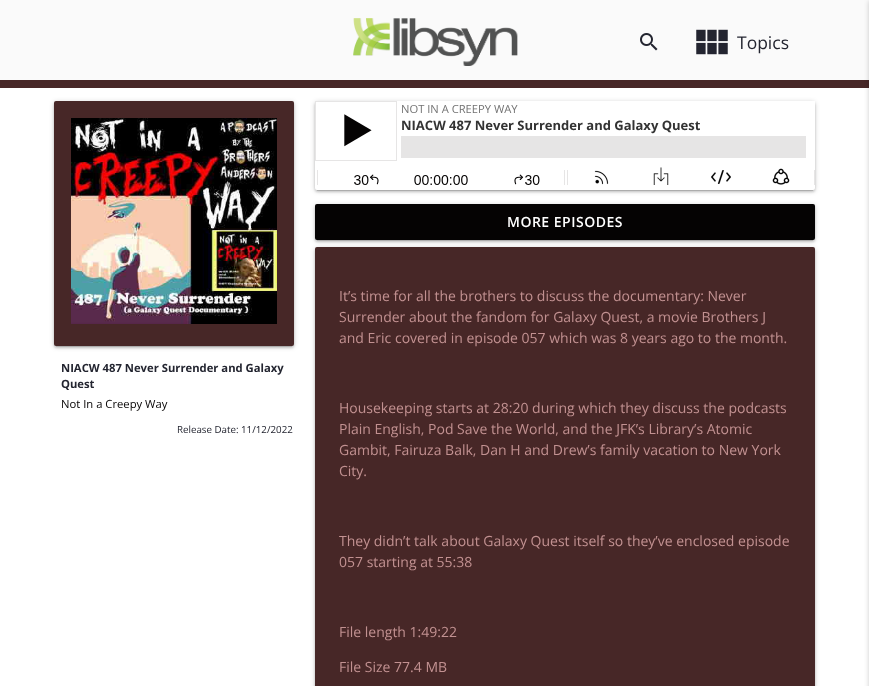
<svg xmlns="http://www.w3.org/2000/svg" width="869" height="686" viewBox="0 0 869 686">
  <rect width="100%" height="100%" fill="#fff"/>
  <path d="M0 0h869v80H0z" fill="#fafafa"/>
  <image x="353" y="18" width="165" height="48" href="img/1.png"/>
  <image x="640" y="33" width="18" height="18" href="img/2.png"/>
  <image x="696" y="29" width="32" height="26" href="img/3.png"/>
  <path d="M0 80h869v8H0z" fill="#472727"/>
  <path d="M869 1h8v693H869z" fill="#00000033" filter="blur(2.5px)"/>
  <rect x="315" y="102" width="500" height="89" rx="2" fill="#00000033" filter="blur(2.5px)"/>
  <path d="M317 106h496v85H317z" fill="#0000001f" filter="blur(0.5px)"/>
  <rect x="315" y="103" width="500" height="89" rx="2" fill="#00000024" filter="blur(1px)"/>
  <rect x="315" y="101" width="500" height="89" rx="2" fill="#fff"/>
  <image x="315" y="101" width="500" height="84" href="img/4.png"/>
  <rect x="315" y="205" width="500" height="36" rx="2" fill="#00000033" filter="blur(2.5px)"/>
  <path d="M317 209h496v32H317z" fill="#0000001f" filter="blur(0.5px)"/>
  <rect x="315" y="206" width="500" height="36" rx="2" fill="#00000024" filter="blur(1px)"/>
  <rect x="315" y="204" width="500" height="36" rx="2" fill="#050303"/>
  <rect x="54" y="102" width="240" height="245" rx="2" fill="#00000033" filter="blur(2.5px)"/>
  <path d="M56 106h236v241H56z" fill="#0000001f" filter="blur(0.5px)"/>
  <rect x="54" y="103" width="240" height="245" rx="2" fill="#00000024" filter="blur(1px)"/>
  <rect x="54" y="101" width="240" height="245" rx="2" fill="#472727"/>
  <image x="71" y="118" width="206" height="206" href="img/5.png"/>
  <rect x="315" y="248" width="500" height="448" rx="2" fill="#00000033" filter="blur(2.5px)"/>
  <rect x="315" y="249" width="500" height="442" rx="2" fill="#00000024" filter="blur(1px)"/>
  <rect x="315" y="247" width="500" height="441" rx="2" fill="#472727"/>
  <text x="737" y="49" font-family="Open Sans" font-size="17.5" fill="#232530">Topics</text>
  <text x="507" y="227" font-family="Open Sans" font-size="14" font-weight="600" letter-spacing="0.5" fill="#fff">MORE EPISODES</text>
  <g font-family="Open Sans" font-size="11.25" font-weight="bold" fill="#232530">
    <text x="61" y="372">NIACW 487 Never Surrender and Galaxy</text>
    <text x="61" y="388">Quest</text>
  </g>
  <text x="61" y="408" font-family="Open Sans" font-size="11.25" fill="#050303">Not In a Creepy Way</text>
  <text x="177" y="433" font-family="Open Sans" font-size="9.75" fill="#232530">Release Date: 11/12/2022</text>
  <g font-family="Open Sans" font-size="14" fill="#c29191">
    <text x="339" y="301">It’s time for all the brothers to discuss the documentary: Never</text>
    <text x="339" y="322">Surrender about the fandom for Galaxy Quest, a movie Brothers J</text>
    <text x="339" y="343">and Eric covered in episode 057 which was 8 years ago to the month.</text>
    <text x="339" y="413">Housekeeping starts at 28:20 during which they discuss the podcasts</text>
    <text x="339" y="434">Plain English, Pod Save the World, and the JFK’s Library’s Atomic</text>
    <text x="339" y="455">Gambit, Fairuza Balk, Dan H and Drew’s family vacation to New York</text>
    <text x="339" y="476">City.</text>
    <text x="339" y="546">They didn’t talk about Galaxy Quest itself so they’ve enclosed episode</text>
    <text x="339" y="567">057 starting at 55:38</text>
    <text x="339" y="637">File length 1:49:22</text>
    <text x="339" y="672">File Size 77.4 MB</text>
  </g>
</svg>
